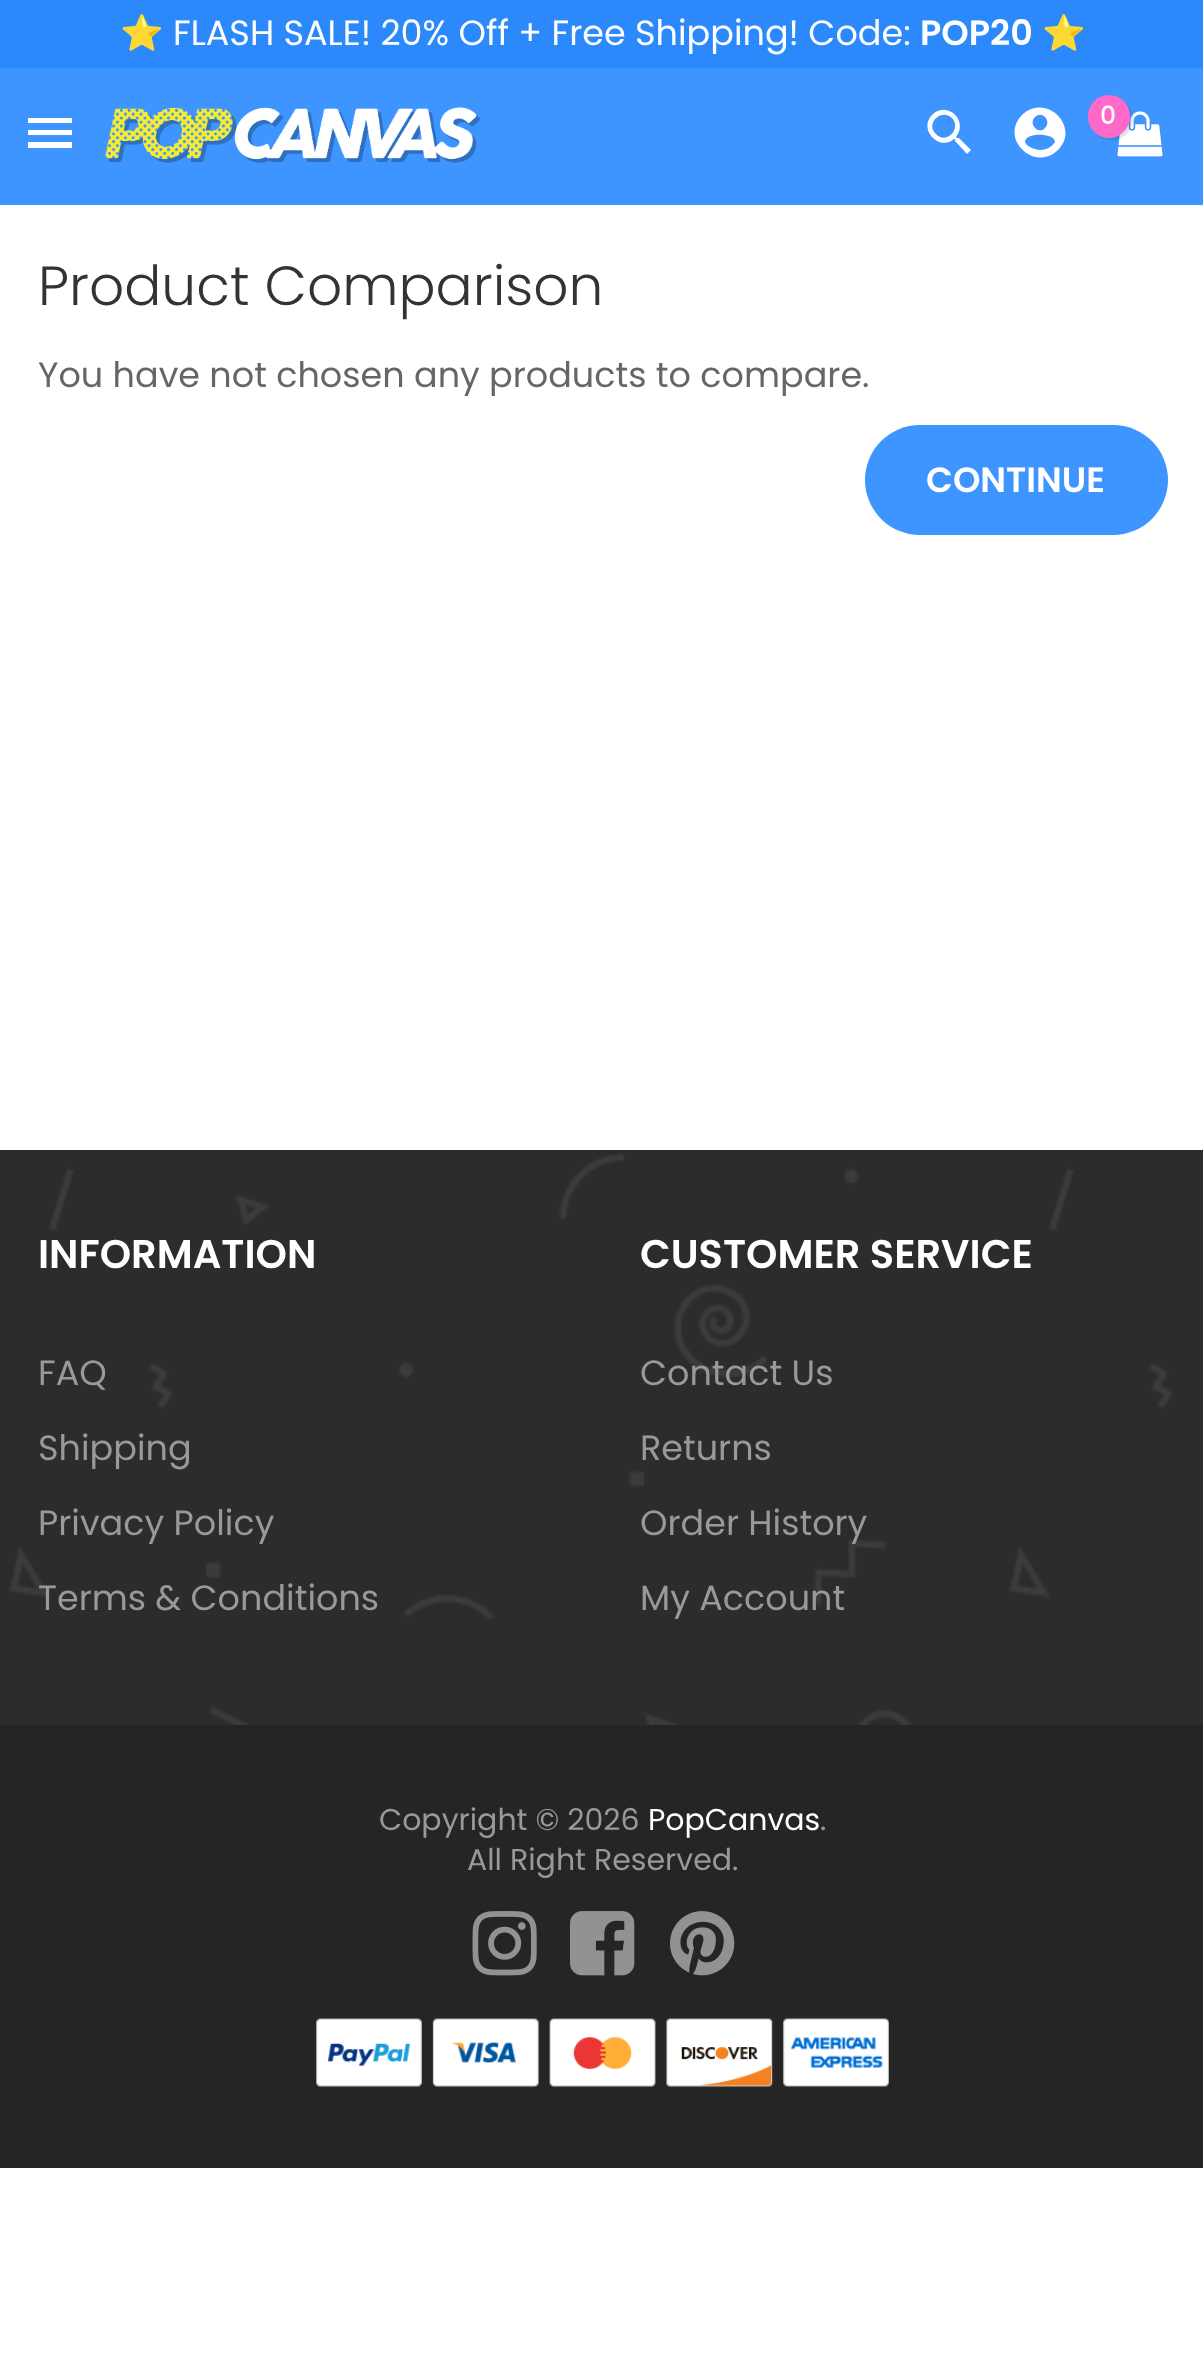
<svg xmlns="http://www.w3.org/2000/svg" width="1203" height="2370" viewBox="0 0 1203 2370">
  <rect width="100%" height="100%" fill="#fff"/>
  <path d="M0 0h1203v68H0z" fill="#2c89fc"/>
  <path d="M0 68h1203v137H0z" fill="#3e95ff"/>
  <path d="M28 118H72V123H28ZM28 135V130H72V135ZM28 148V142H72V148Z" fill="#fff"/>
  <image x="105" y="107" width="375" height="56" href="img/1.png"/>
  <path d="M936 134C946 145 962 129 952 118C941 108 925 124 936 134ZM959 138L971 150L967 154L955 141V139H954C939 152 918 129 932 115C947 100 969 121 956 137L957 138Z" fill="#fff"/>
  <path d="M1032 148C1040 152 1050 150 1055 142C1055 133 1025 132 1025 142C1026 145 1029 147 1032 148ZM1045 117C1038 110 1028 121 1035 128C1042 135 1052 124 1045 117ZM1022 115C1046 92 1081 127 1058 150C1034 173 999 138 1022 115Z" fill="#fff"/>
  <image x="1117" y="111" width="46" height="46" href="img/2.png"/>
  <path d="M1094.5 132C1102.5 142 1118 143 1127 134C1135.5 125 1134.5 110 1125 102.5C1132 110.5 1131.5 123.5 1124 131.5C1116 139 1103 139.5 1094.5 132Z" fill="#0000001a"/>
  <rect x="1088" y="95" width="42" height="43" rx="21" fill="#ff69c9"/>
  <rect x="865" y="425" width="303" height="110" rx="55" fill="#3e95ff"/>
  <image x="0" y="1150" width="1203" height="575" href="img/3.png"/>
  <path d="M0 1725h1203v443H0z" fill="#252525"/>
  <image x="472" y="1911" width="65" height="65" href="img/4.png"/>
  <image x="570" y="1911" width="65" height="65" href="img/5.png"/>
  <image x="670" y="1911" width="65" height="65" href="img/6.png"/>
  <image x="316" y="2017" width="573" height="71" href="img/7.png"/>
  <text x="120" y="45" font-family="Noto Color Emoji" font-size="35" fill="#fff">⭐</text>
  <text x="173" y="45" font-family="Poppins" font-size="35" fill="#fff">FLASH SALE! 20% Off + Free Shipping! Code:</text>
  <text x="920" y="45" font-family="Poppins" font-size="35" font-weight="600" fill="#fff">POP20</text>
  <text x="1042" y="45" font-family="Noto Color Emoji" font-size="35" fill="#fff">⭐</text>
  <text x="1100" y="124" font-family="Poppins" font-size="25" font-weight="500" fill="#fff">0</text>
  <text x="38" y="305" font-family="Poppins" font-size="55" font-weight="300" fill="#333">Product Comparison</text>
  <text x="38" y="387" font-family="Poppins" font-size="35" fill="#666">You have not chosen any products to compare.</text>
  <text x="926" y="492" font-family="Poppins" font-size="35" font-weight="600" fill="#fff">CONTINUE</text>
  <text x="38" y="1268" font-family="Poppins" font-size="40" font-weight="600" fill="#fff">INFORMATION</text>
  <g font-family="Poppins" font-size="35" fill="#999">
    <text x="38" y="1385">FAQ</text>
    <text x="38" y="1460">Shipping</text>
    <text x="38" y="1535">Privacy Policy</text>
    <text x="38" y="1610">Terms &amp; Conditions</text>
  </g>
  <text x="640" y="1268" font-family="Poppins" font-size="40" font-weight="600" fill="#fff">CUSTOMER SERVICE</text>
  <g font-family="Poppins" font-size="35" fill="#999">
    <text x="640" y="1385">Contact Us</text>
    <text x="640" y="1460">Returns</text>
    <text x="640" y="1535">Order History</text>
    <text x="640" y="1610">My Account</text>
  </g>
  <text x="379" y="1830" font-family="Poppins" font-size="30" fill="#999">Copyright © 2026</text>
  <text x="648" y="1830" font-family="Poppins" font-size="30" fill="#fff">PopCanvas</text>
  <g font-family="Poppins" font-size="30" fill="#999">
    <text x="820" y="1830">.</text>
    <text x="467" y="1870">All Right Reserved.</text>
  </g>
</svg>
